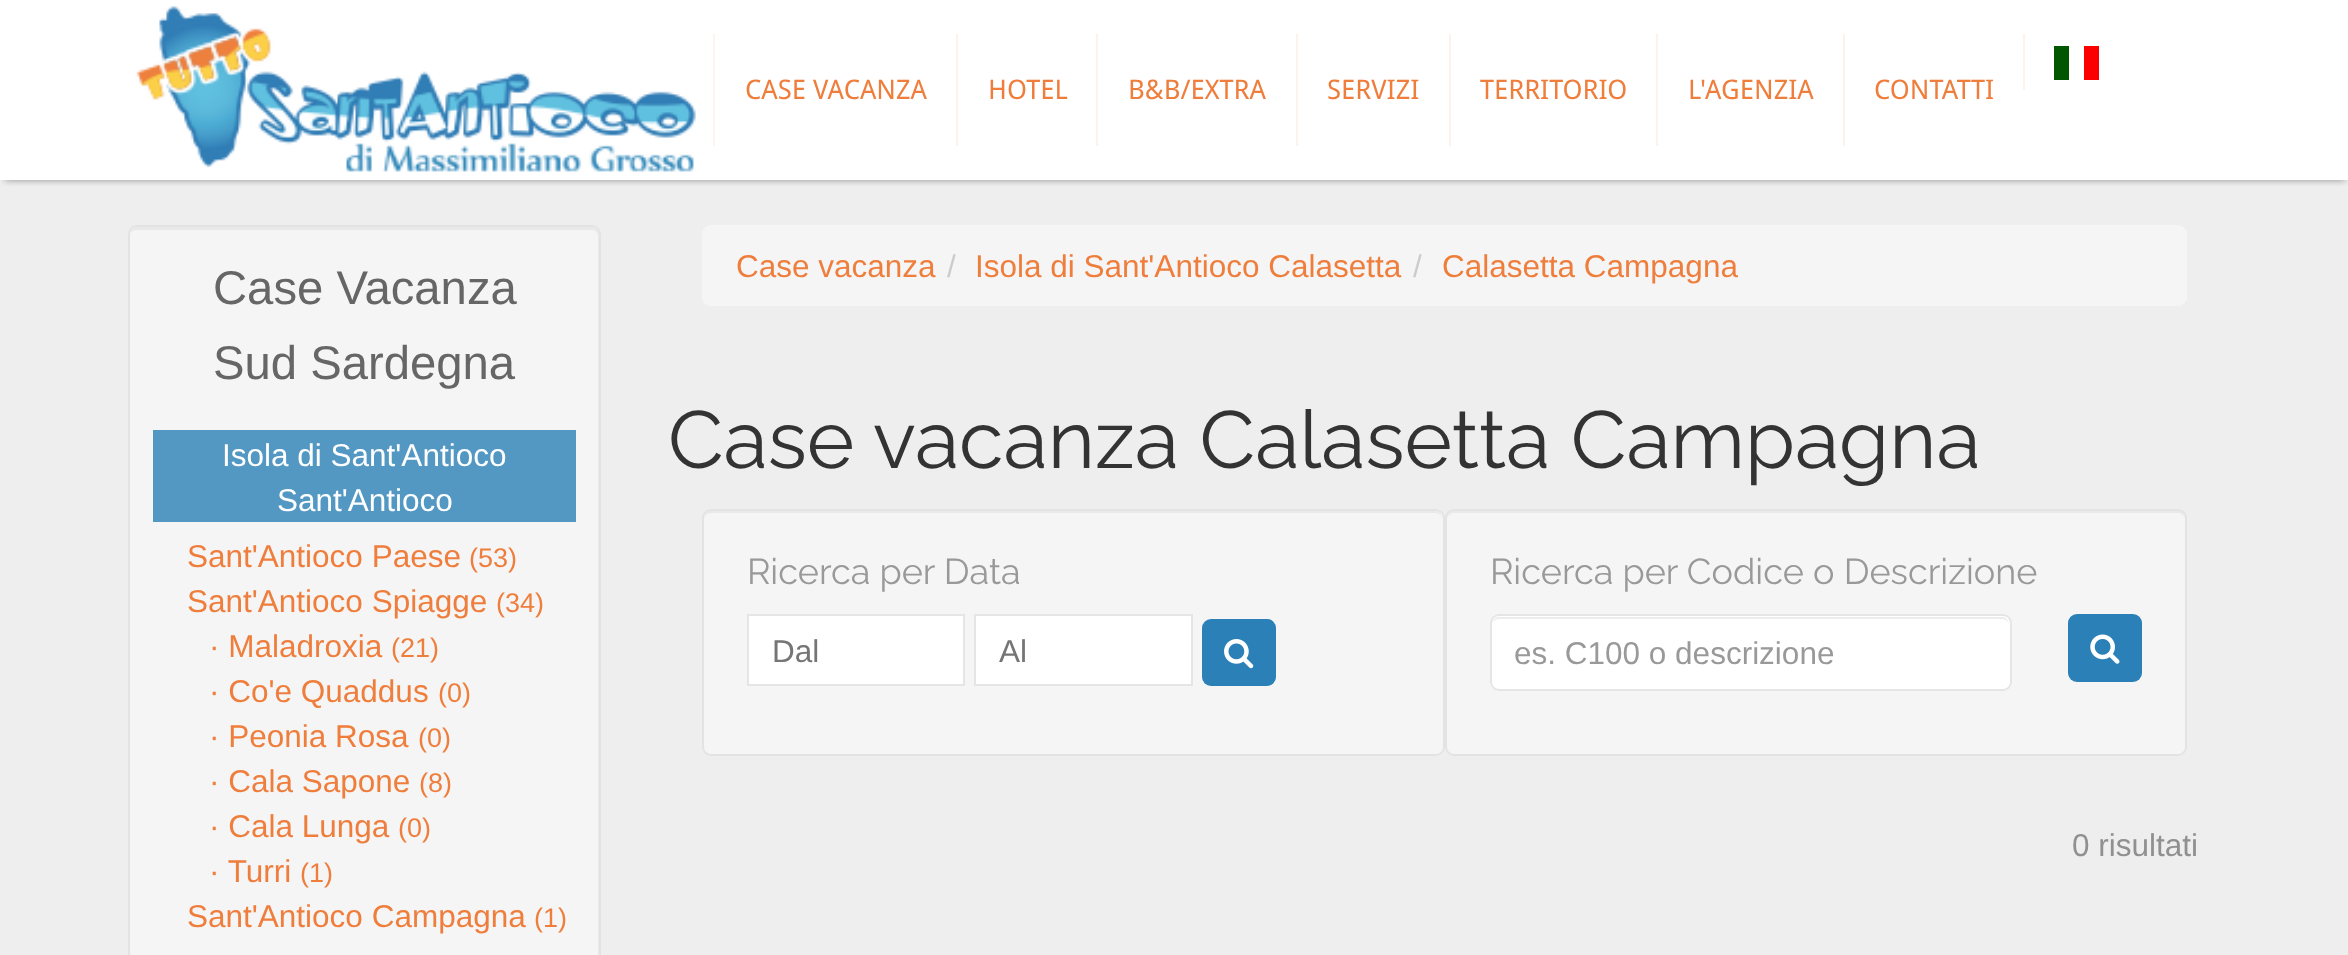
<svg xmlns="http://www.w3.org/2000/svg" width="2348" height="955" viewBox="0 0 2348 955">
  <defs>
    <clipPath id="clip1"><path d="M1 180h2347v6H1z"/></clipPath>
  </defs>
  <rect width="100%" height="100%" fill="#fff"/>
  <path d="M0 180h2348v775H0z" fill="#eee"/>
  <g clip-path="url(#clip1)">
    <path d="M5 9h2340v171H5z" fill="#00000066" filter="blur(3.5px)"/>
  </g>
  <path d="M713 34h2v112H713z" fill="#fdf2ec"/>
  <image x="128" y="0" width="586" height="180" href="img/1.png"/>
  <path d="M956 34h2v112H956z" fill="#fdf2ec"/>
  <path d="M1096 34h2v112H1096z" fill="#fdf2ec"/>
  <path d="M1296 34h2v112H1296z" fill="#fdf2ec"/>
  <path d="M1449 34h2v112H1449z" fill="#fdf2ec"/>
  <path d="M1656 34h2v112H1656z" fill="#fdf2ec"/>
  <path d="M1843 34h2v112H1843z" fill="#fdf2ec"/>
  <path d="M2023 34h2v56H2023z" fill="#fdf2ec"/>
  <path d="M2054 46h15v34H2054z" fill="#005700"/>
  <path d="M2084 46h15v34H2084z" fill="#fc0000"/>
  <rect x="128" y="225" width="473" height="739" rx="9" fill="#f5f5f5"/>
  <path d="M137 230H592C595 230 598 233 598 236V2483C599 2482 599 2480 599 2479V234C599 230 596 227 592 227H138C134 227 131 230 131 233C132 231 135 230 137 230Z" fill="#e9e9e9"/>
  <rect x="129" y="226" width="471" height="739" rx="8" fill="none" stroke="#e3e3e3" stroke-width="2"/>
  <path d="M153 430h423v92H153z" fill="#5397c3"/>
  <rect x="702" y="225" width="1485" height="81" rx="9" fill="#f5f5f5"/>
  <rect x="702" y="509" width="743" height="247" rx="9" fill="#f5f5f5"/>
  <path d="M711 513H1436C1439 513 1442 516 1442 520C1442 516 1440 511 1435 511H711C706 511 704 516 704 520C704 516 707 513 711 513Z" fill="#e9e9e9"/>
  <rect x="703" y="510" width="741" height="245" rx="8" fill="none" stroke="#e3e3e3" stroke-width="2"/>
  <path d="M748 615h216v70H748z" fill="#fff" stroke="#e5e5e5" stroke-width="2"/>
  <path d="M975 615h217v70H975z" fill="#fff" stroke="#e5e5e5" stroke-width="2"/>
  <rect x="1202" y="619" width="74" height="67" rx="9" fill="#2a80b7"/>
  <image x="1224" y="639" width="30" height="30" href="img/2.png"/>
  <rect x="1445" y="509" width="742" height="247" rx="9" fill="#f5f5f5"/>
  <path d="M1454 513H2178C2182 513 2185 516 2185 520C2185 516 2183 511 2178 511H1454C1449 511 1447 516 1447 520C1447 516 1450 513 1454 513Z" fill="#e9e9e9"/>
  <rect x="1446" y="510" width="740" height="245" rx="8" fill="none" stroke="#e3e3e3" stroke-width="2"/>
  <rect x="1490" y="614" width="522" height="77" rx="9" fill="#fff"/>
  <path d="M1498 619H2002C2006 619 2009 622 2009 626C2009 622 2007 617 2002 617H1499C1494 617 1492 622 1492 626C1492 622 1495 619 1498 619Z" fill="#ececec"/>
  <rect x="1491" y="615" width="520" height="75" rx="8" fill="none" stroke="#e5e5e5" stroke-width="2"/>
  <rect x="2068" y="614" width="74" height="68" rx="9" fill="#2a80b7"/>
  <image x="2090" y="634" width="30" height="30" href="img/3.png"/>
  <g font-family="Droid Sans" font-size="27" fill="#ef7e3c">
    <text x="745" y="99">CASE VACANZA</text>
    <text x="988" y="99">HOTEL</text>
    <text x="1128" y="99">B&amp;B/EXTRA</text>
    <text x="1327" y="99">SERVIZI</text>
    <text x="1480" y="99">TERRITORIO</text>
    <text x="1688" y="99">L'AGENZIA</text>
    <text x="1874" y="99">CONTATTI</text>
  </g>
  <g font-family="Liberation Sans" font-size="47.25" fill="#666">
    <text x="213" y="304">Case Vacanza</text>
    <text x="213" y="379">Sud Sardegna</text>
  </g>
  <g font-family="Liberation Sans" font-size="31.5" fill="#fff">
    <text x="222" y="466">Isola di Sant'Antioco</text>
    <text x="277" y="511">Sant'Antioco</text>
  </g>
  <text x="187" y="567" font-family="Liberation Sans" font-size="31.5" fill="#ef7e3c">Sant'Antioco Paese</text>
  <text x="469" y="567" font-family="Liberation Sans" font-size="27" fill="#ef7e3c">(53)</text>
  <text x="187" y="612" font-family="Liberation Sans" font-size="31.5" fill="#ef7e3c">Sant'Antioco Spiagge</text>
  <text x="496" y="612" font-family="Liberation Sans" font-size="27" fill="#ef7e3c">(34)</text>
  <text x="209" y="657" font-family="Liberation Sans" font-size="31.5" fill="#ef7e3c">· Maladroxia</text>
  <text x="391" y="657" font-family="Liberation Sans" font-size="27" fill="#ef7e3c">(21)</text>
  <text x="209" y="702" font-family="Liberation Sans" font-size="31.5" fill="#ef7e3c">· Co'e Quaddus</text>
  <text x="438" y="702" font-family="Liberation Sans" font-size="27" fill="#ef7e3c">(0)</text>
  <text x="209" y="747" font-family="Liberation Sans" font-size="31.5" fill="#ef7e3c">· Peonia Rosa</text>
  <text x="418" y="747" font-family="Liberation Sans" font-size="27" fill="#ef7e3c">(0)</text>
  <text x="209" y="792" font-family="Liberation Sans" font-size="31.5" fill="#ef7e3c">· Cala Sapone</text>
  <text x="419" y="792" font-family="Liberation Sans" font-size="27" fill="#ef7e3c">(8)</text>
  <text x="209" y="837" font-family="Liberation Sans" font-size="31.5" fill="#ef7e3c">· Cala Lunga</text>
  <text x="398" y="837" font-family="Liberation Sans" font-size="27" fill="#ef7e3c">(0)</text>
  <text x="209" y="882" font-family="Liberation Sans" font-size="31.5" fill="#ef7e3c">· Turri</text>
  <text x="300" y="882" font-family="Liberation Sans" font-size="27" fill="#ef7e3c">(1)</text>
  <text x="187" y="927" font-family="Liberation Sans" font-size="31.5" fill="#ef7e3c">Sant'Antioco Campagna</text>
  <text x="534" y="927" font-family="Liberation Sans" font-size="27" fill="#ef7e3c">(1)</text>
  <text x="736" y="277" font-family="Liberation Sans" font-size="31.5" fill="#ef7e3c">Case vacanza</text>
  <text x="947" y="277" font-family="Liberation Sans" font-size="31.5" fill="#ccc">/</text>
  <text x="975" y="277" font-family="Liberation Sans" font-size="31.5" fill="#ef7e3c">Isola di Sant'Antioco Calasetta</text>
  <text x="1413" y="277" font-family="Liberation Sans" font-size="31.5" fill="#ccc">/</text>
  <text x="1442" y="277" font-family="Liberation Sans" font-size="31.5" fill="#ef7e3c">Calasetta Campagna</text>
  <text x="668" y="468" font-family="Raleway" font-size="81" fill="#333">Case vacanza Calasetta Campagna</text>
  <text x="747" y="584" font-family="Raleway" font-size="36" fill="#999">Ricerca per Data</text>
  <g font-family="Liberation Sans" font-size="31.5" fill="#757575">
    <text x="772" y="662">Dal</text>
    <text x="999" y="662">Al</text>
  </g>
  <text x="1490" y="584" font-family="Raleway" font-size="36" fill="#999">Ricerca per Codice o Descrizione</text>
  <text x="1514" y="664" font-family="Liberation Sans" font-size="31.5" fill="#999">es. C100 o descrizione</text>
  <text x="2072" y="856" font-family="Liberation Sans" font-size="31.5" fill="#909090">0 risultati</text>
</svg>
